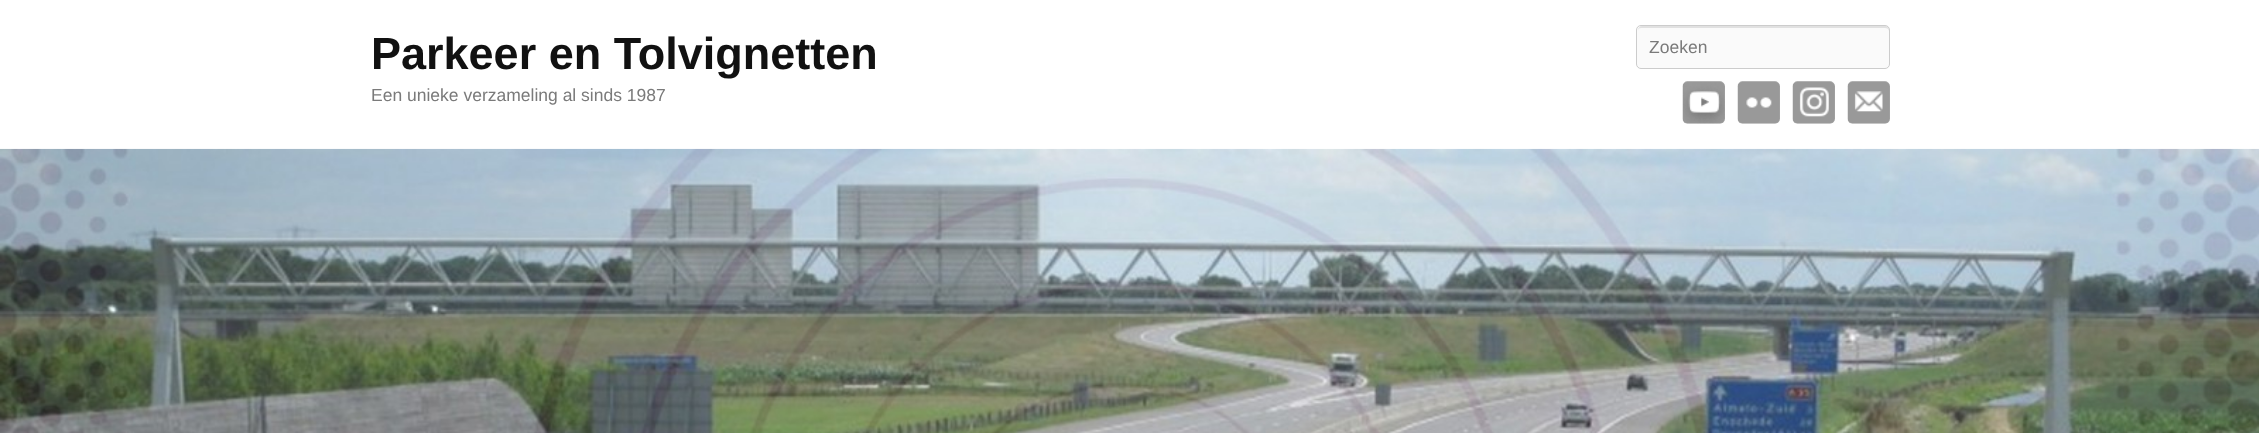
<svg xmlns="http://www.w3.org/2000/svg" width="2259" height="433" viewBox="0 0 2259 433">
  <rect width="100%" height="100%" fill="#fff"/>
  <rect x="1636" y="25" width="254" height="44" rx="5" fill="#fafafa"/>
  <path d="M1641 28H1885C1887 28 1889 29 1889 31V30C1889 28 1887 26 1885 26H1642C1640 26 1638 28 1638 30V31C1638 29 1639 28 1641 28Z" fill="#e1e1e1"/>
  <rect x="1636.5" y="25.5" width="253" height="43" rx="4.5" fill="none" stroke="#ccc"/>
  <image x="1682" y="81" width="43" height="43" href="img/1.png"/>
  <image x="1737" y="81" width="43" height="43" href="img/2.png"/>
  <image x="1792" y="81" width="43" height="43" href="img/3.png"/>
  <image x="1847" y="81" width="43" height="43" href="img/4.png"/>
  <image x="0" y="148" width="2259" height="285" href="img/5.png"/>
  <text x="371" y="69" font-family="Liberation Sans" font-size="45" font-weight="bold" fill="#111">Parkeer en Tolvignetten</text>
  <g font-family="Liberation Sans" font-size="17.5" fill="#7a7a7a">
    <text x="371" y="101">Een unieke verzameling al sinds 1987</text>
    <text x="1649" y="53">Zoeken</text>
  </g>
</svg>
